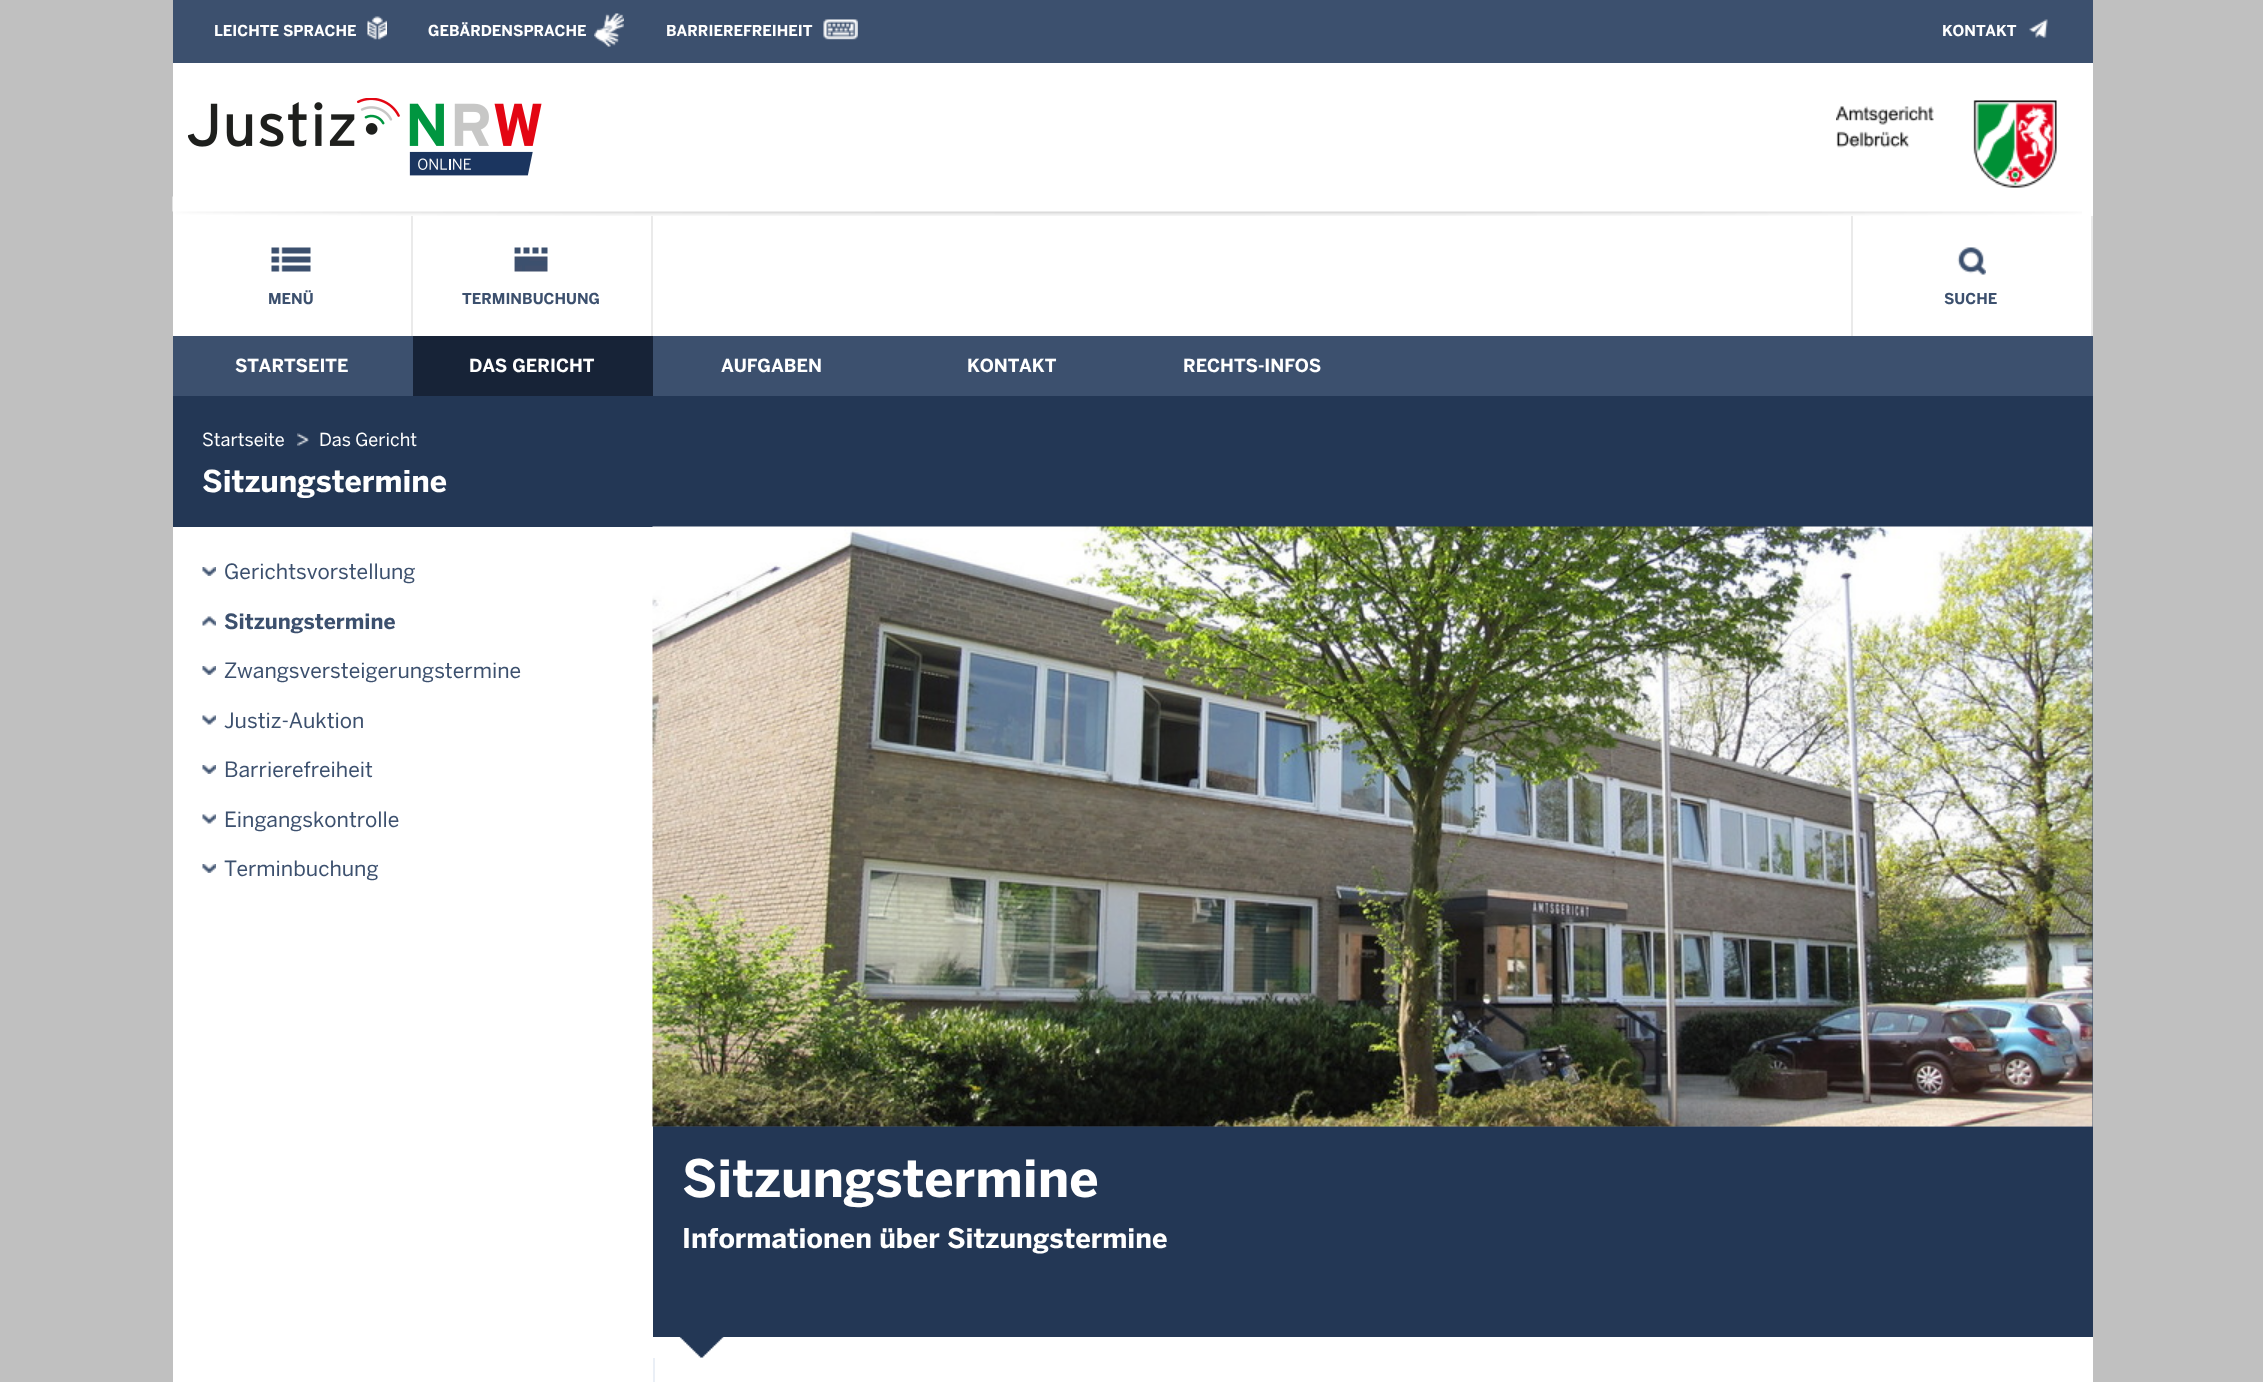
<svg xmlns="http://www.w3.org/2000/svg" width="2263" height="1382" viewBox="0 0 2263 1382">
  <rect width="100%" height="100%" fill="#c0c0c0"/>
  <path d="M173 63h1920v1319H173z" fill="#fff"/>
  <path d="M173 0h1920v63H173z" fill="#3c506e"/>
  <image x="367" y="16" width="20" height="24" href="img/1.png"/>
  <image x="594" y="13" width="30" height="34" href="img/2.png"/>
  <image x="823" y="19" width="35" height="21" href="img/3.png"/>
  <image x="2029" y="19" width="19" height="19" href="img/4.png"/>
  <image x="188" y="98" width="354" height="78" href="img/5.png"/>
  <image x="1836" y="100" width="221" height="88" href="img/6.png"/>
  <image x="172" y="196" width="1910" height="20" href="img/7.png"/>
  <image x="271" y="247" width="40" height="25" href="img/8.png"/>
  <path d="M411 216h2v120H411z" fill="#eaeaea"/>
  <image x="514" y="247" width="34" height="25" href="img/9.png"/>
  <path d="M651 216h2v120H651z" fill="#eaeaea"/>
  <path d="M1851 216h2v120H1851z" fill="#eaeaea"/>
  <image x="1957" y="247" width="29" height="28" href="img/10.png"/>
  <path d="M2091 216h2v120H2091z" fill="#eaeaea"/>
  <path d="M173 336h1920v60H173z" fill="#3c506e"/>
  <path d="M413 336h240v60H413z" fill="#172337"/>
  <path d="M173 396h1920v131H173z" fill="#233755"/>
  <image x="297" y="433" width="12" height="13" href="img/11.png"/>
  <image x="202" y="567" width="14" height="9" href="img/12.png"/>
  <image x="202" y="616" width="14" height="10" href="img/13.png"/>
  <image x="202" y="666" width="14" height="9" href="img/12.png"/>
  <image x="202" y="715" width="14" height="10" href="img/14.png"/>
  <image x="202" y="765" width="14" height="9" href="img/12.png"/>
  <image x="202" y="814" width="14" height="10" href="img/14.png"/>
  <image x="202" y="864" width="14" height="9" href="img/12.png"/>
  <image x="679" y="1337" width="45" height="21" href="img/15.png"/>
  <path d="M653 527h1440v600H653z" fill="#3c506e"/>
  <image x="652" y="526" width="1441" height="601" href="img/16.png"/>
  <path d="M653 1127h1440v210H653z" fill="#233755"/>
  <path d="M653 1358h2v24H653z" fill="#eaeff6"/>
  <g font-family="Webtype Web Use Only" font-size="15" font-weight="bold" fill="#fff">
    <text x="214" y="36">LEICHTE SPRACHE</text>
    <text x="428" y="36">GEBÄRDENSPRACHE</text>
    <text x="666" y="36">BARRIEREFREIHEIT</text>
    <text x="1942" y="36">KONTAKT</text>
  </g>
  <g font-family="Webtype Web Use Only" font-size="15" font-weight="bold" fill="#3c506e">
    <text x="268" y="304">MENÜ</text>
    <text x="462" y="304">TERMINBUCHUNG</text>
    <text x="1944" y="304">SUCHE</text>
  </g>
  <g font-family="Webtype Web Use Only" font-size="18" font-weight="bold" fill="#fff">
    <text x="235" y="372">STARTSEITE</text>
    <text x="469" y="372">DAS GERICHT</text>
    <text x="721" y="372">AUFGABEN</text>
    <text x="967" y="372">KONTAKT</text>
    <text x="1183" y="372">RECHTS-INFOS</text>
  </g>
  <g font-family="Webtype Web Use Only" font-size="18" fill="#fff">
    <text x="202" y="446">Startseite</text>
    <text x="319" y="446">Das Gericht</text>
  </g>
  <text x="202" y="492" font-family="Webtype Web Use Only" font-size="30" font-weight="bold" fill="#fff">Sitzungstermine</text>
  <text x="224" y="579" font-family="Webtype Web Use Only" font-size="21" fill="#3c506e">Gerichtsvorstellung</text>
  <text x="224" y="629" font-family="Webtype Web Use Only" font-size="21" font-weight="bold" fill="#3c506e">Sitzungstermine</text>
  <g font-family="Webtype Web Use Only" font-size="21" fill="#3c506e">
    <text x="224" y="678">Zwangsversteigerungstermine</text>
    <text x="224" y="728">Justiz-Auktion</text>
    <text x="224" y="777">Barrierefreiheit</text>
    <text x="224" y="827">Eingangskontrolle</text>
    <text x="224" y="876">Terminbuchung</text>
  </g>
  <text x="682" y="1197" font-family="Webtype Web Use Only" font-size="51" font-weight="bold" fill="#fff">Sitzungstermine</text>
  <text x="682" y="1248" font-family="Webtype Web Use Only" font-size="27" font-weight="bold" fill="#fff">Informationen über Sitzungstermine</text>
</svg>
